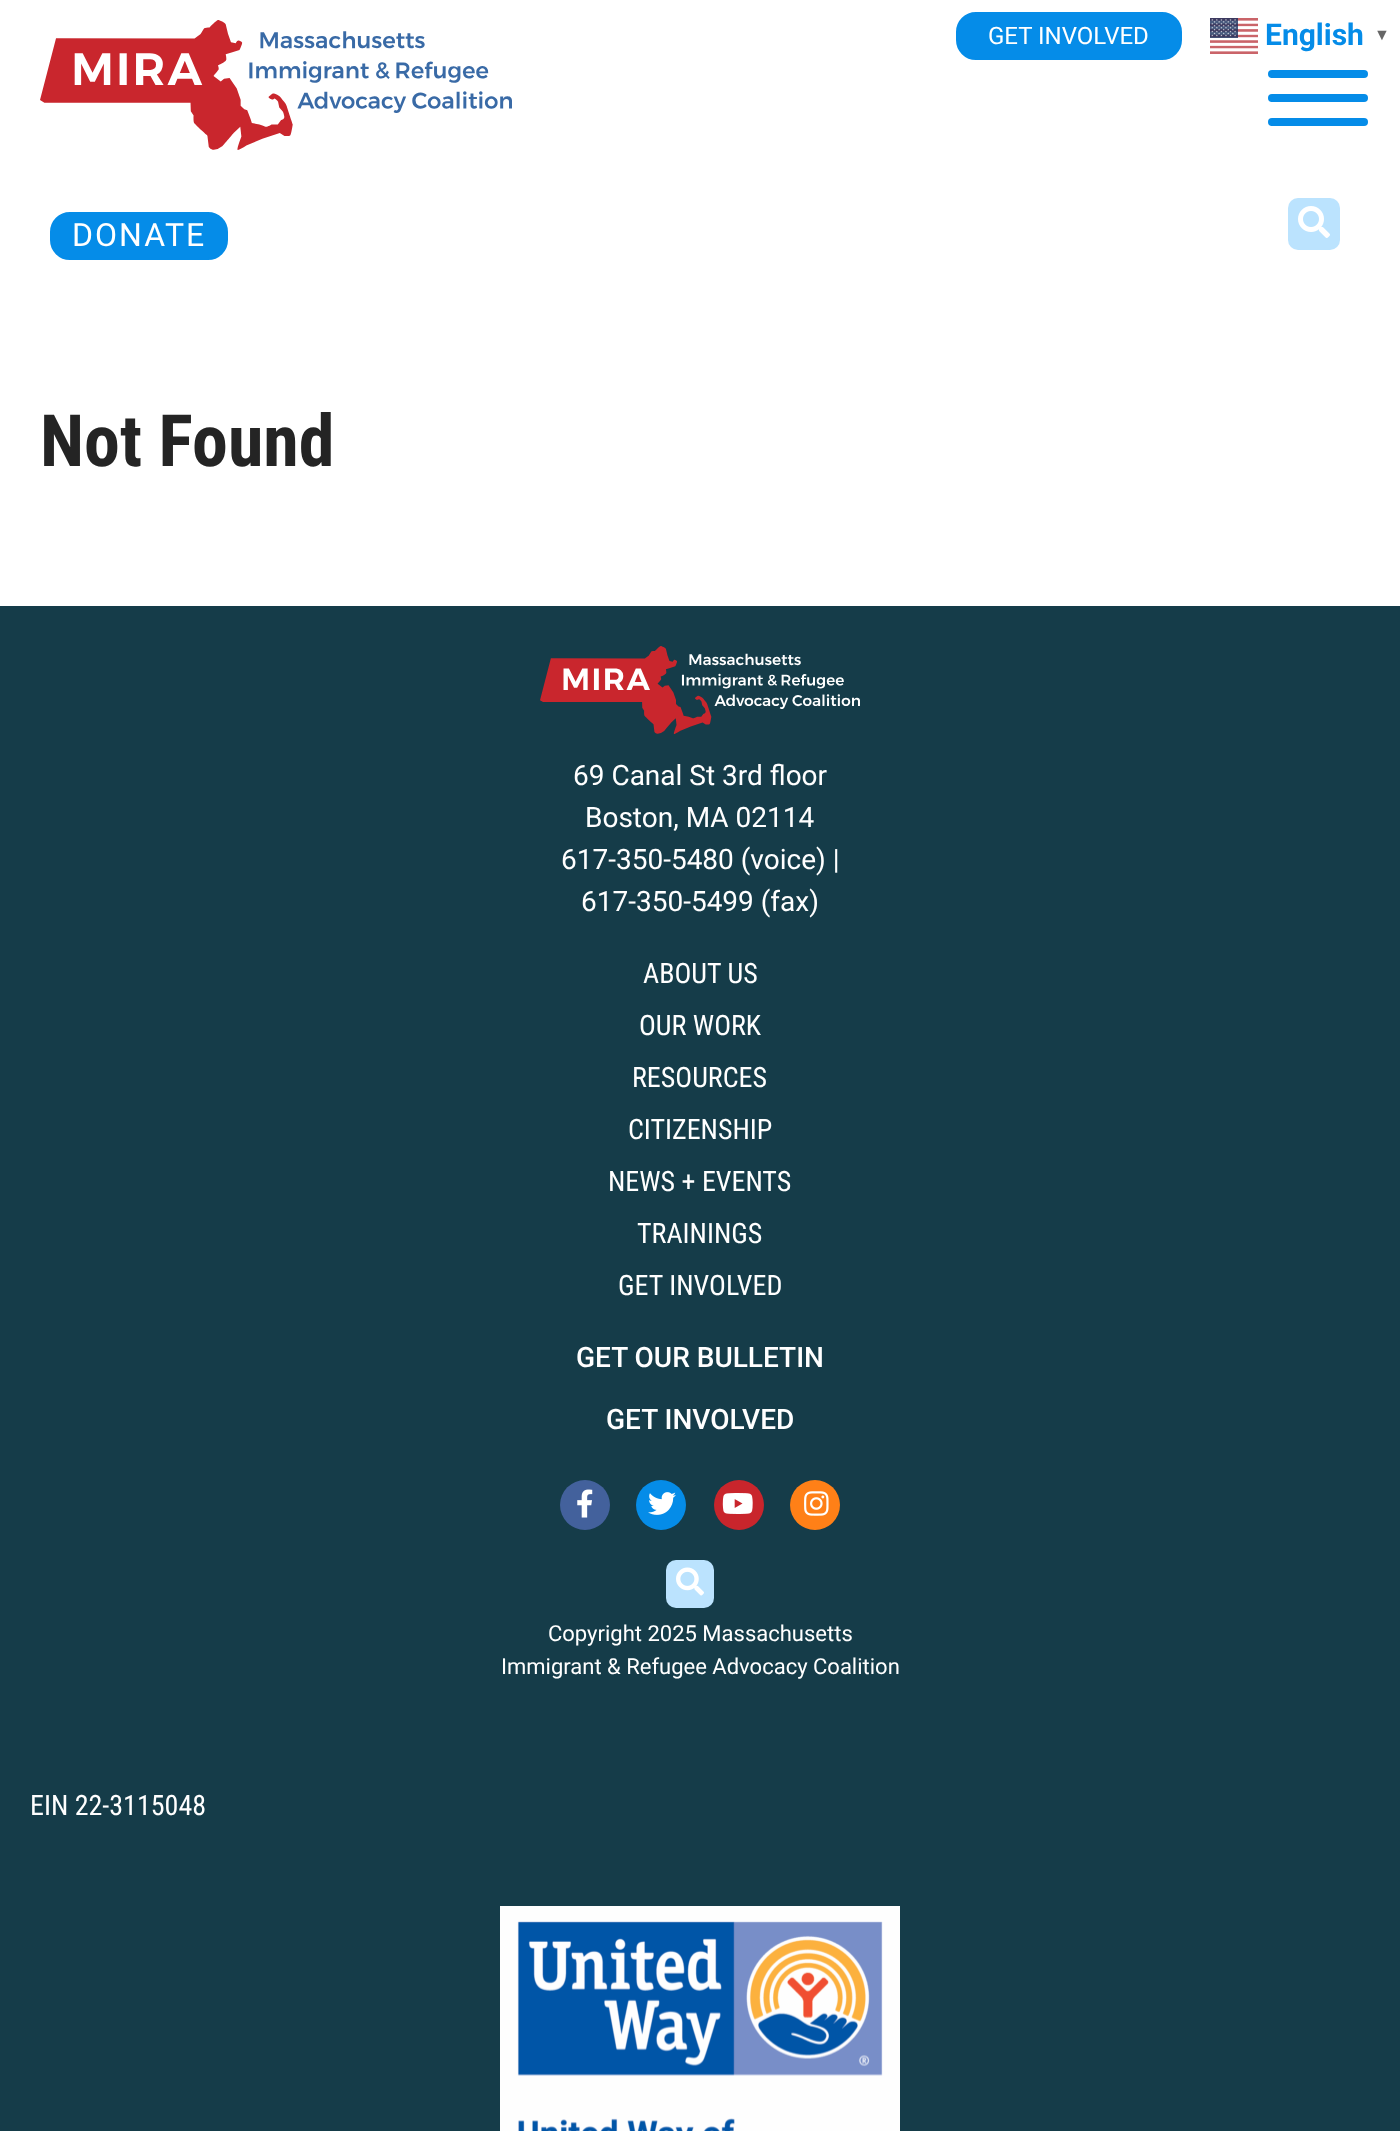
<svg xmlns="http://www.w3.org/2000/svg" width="1400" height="2131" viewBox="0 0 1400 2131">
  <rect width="100%" height="100%" fill="#fff"/>
  <image x="40" y="20" width="472" height="130" href="img/1.png"/>
  <rect x="957" y="13" width="224" height="46" rx="19" fill="#058ce8" stroke="#058ce8" stroke-width="2"/>
  <image x="1210" y="18" width="48" height="36" href="img/2.png"/>
  <rect x="51" y="213" width="176" height="46" rx="19" fill="#058ce8" stroke="#058ce8" stroke-width="2"/>
  <rect x="1288" y="198" width="52" height="52" rx="10" fill="#bbe3fe"/>
  <image x="1298" y="206" width="32" height="32" href="img/3.png"/>
  <rect x="1268" y="70" width="100" height="8" rx="4" fill="#058ce8"/>
  <rect x="1268" y="94" width="100" height="8" rx="4" fill="#058ce8"/>
  <rect x="1268" y="118" width="100" height="8" rx="4" fill="#058ce8"/>
  <path d="M0 606h1400v1525H0z" fill="#153c49"/>
  <image x="540" y="646" width="320" height="88" href="img/4.png"/>
  <circle cx="585" cy="1505" r="25" fill="#43619c"/>
  <image x="577" y="1489" width="16" height="29" href="img/5.png"/>
  <circle cx="661" cy="1505" r="25" fill="#058ce8"/>
  <image x="648" y="1492" width="28" height="23" href="img/6.png"/>
  <circle cx="739" cy="1505" r="25" fill="#c9252c"/>
  <image x="722" y="1493" width="31" height="21" href="img/7.png"/>
  <circle cx="815" cy="1505" r="25" fill="#ff8017"/>
  <image x="804" y="1491" width="25" height="25" href="img/8.png"/>
  <rect x="666" y="1560" width="48" height="48" rx="10" fill="#bbe3fe"/>
  <image x="676" y="1567" width="28" height="29" href="img/9.png"/>
  <image x="500" y="1906" width="400" height="225" href="img/10.png"/>
  <text x="988" y="44" font-family="Roboto" font-size="24" fill="#fff">GET INVOLVED</text>
  <text x="1265" y="45" font-family="Roboto" font-size="30" font-weight="bold" fill="#058ce8">English</text>
  <text x="1374" y="40" font-family="Liberation Sans" font-size="16" font-weight="bold" fill="#666">▼</text>
  <text x="72" y="246" font-family="Roboto" font-size="32" letter-spacing="2" fill="#fff">DONATE</text>
  <text x="40" y="466" font-family="Roboto Condensed" font-size="72" font-weight="bold" fill="#242424">Not Found</text>
  <g font-family="Roboto" font-size="28" fill="#fff">
    <text x="573" y="785">69 Canal St 3rd floor</text>
    <text x="585" y="827">Boston, MA 02114</text>
    <text x="561" y="869">617-350-5480 (voice) |</text>
    <text x="581" y="911">617-350-5499 (fax)</text>
  </g>
  <g font-family="Roboto Condensed" font-size="28" fill="#fff">
    <text x="643" y="983">ABOUT US</text>
    <text x="639" y="1035">OUR WORK</text>
    <text x="632" y="1087">RESOURCES</text>
    <text x="628" y="1139">CITIZENSHIP</text>
    <text x="608" y="1191">NEWS + EVENTS</text>
    <text x="637" y="1243">TRAININGS</text>
    <text x="618" y="1295">GET INVOLVED</text>
  </g>
  <g font-family="Roboto" font-size="28" font-weight="500" fill="#fff">
    <text x="576" y="1367">GET OUR BULLETIN</text>
    <text x="606" y="1429">GET INVOLVED</text>
  </g>
  <g font-family="Roboto" font-size="22" fill="#fff">
    <text x="548" y="1641">Copyright 2025 Massachusetts</text>
    <text x="501" y="1674">Immigrant &amp; Refugee Advocacy Coalition</text>
  </g>
  <text x="30" y="1815" font-family="Roboto Condensed" font-size="28" fill="#fff">EIN 22-3115048</text>
</svg>
